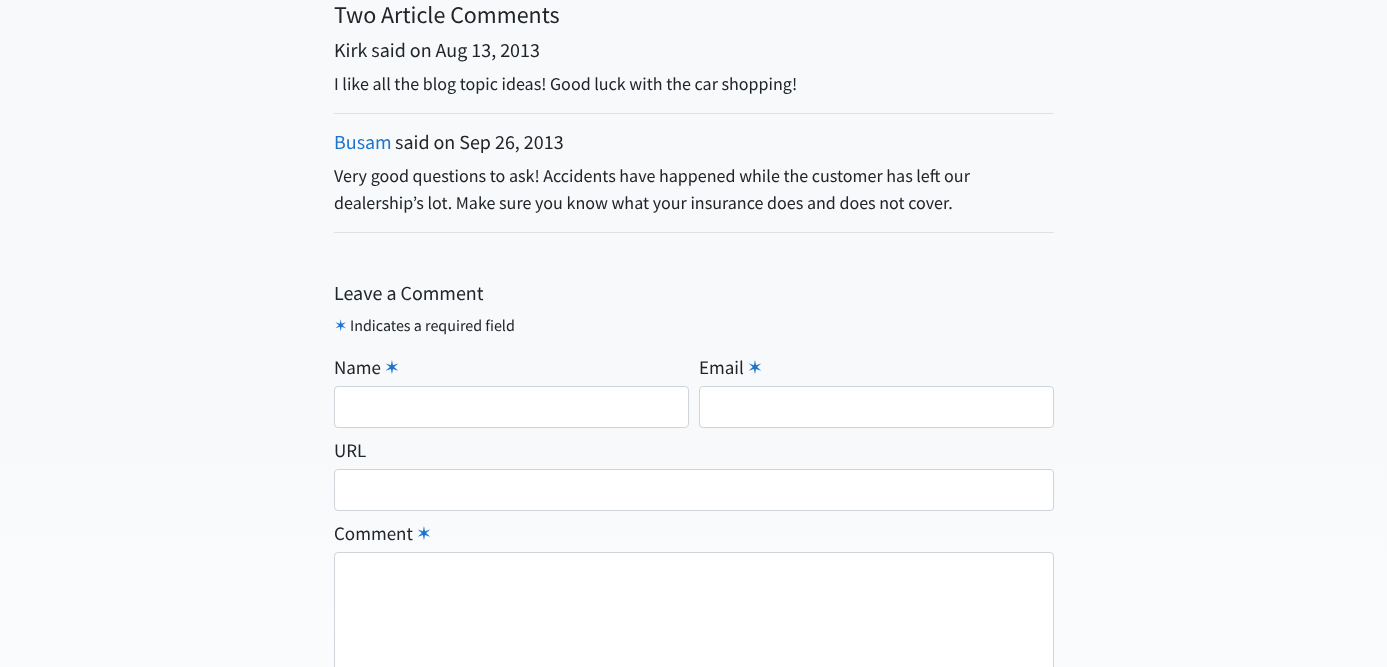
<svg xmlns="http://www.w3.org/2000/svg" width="1387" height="667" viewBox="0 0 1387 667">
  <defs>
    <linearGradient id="g1" gradientUnits="userSpaceOnUse" x1="693" y1="-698" x2="694" y2="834"><stop offset="0.75" stop-color="#f7f9fb"/><stop offset="1" stop-color="#fefefe"/></linearGradient>
  </defs>
  <rect width="100%" height="100%" fill="#fff"/>
  <path d="M0 0h1387v667H0z" fill="url(#g1)"/>
  <path d="M334 113h720v1H334z" fill="#dee0e2"/>
  <path d="M334 232h720v1H334z" fill="#dee0e2"/>
  <rect x="334.5" y="386.5" width="354" height="41" rx="3.5" fill="#fff" stroke="#ced4da"/>
  <rect x="699.5" y="386.5" width="354" height="41" rx="3.5" fill="#fff" stroke="#ced4da"/>
  <rect x="334.5" y="469.5" width="719" height="41" rx="3.5" fill="#fff" stroke="#ced4da"/>
  <rect x="335" y="553" width="718" height="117" rx="3" fill="#fff"/>
  <rect x="334.5" y="552.5" width="719" height="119" rx="3.5" fill="none" stroke="#ced4da"/>
  <text x="334" y="23" font-family="Source Sans Pro" font-size="24" fill="#212529">Two Article Comments</text>
  <text x="334" y="57" font-family="Source Sans Pro" font-size="20" fill="#212529">Kirk said on Aug 13, 2013</text>
  <text x="334" y="90" font-family="Source Sans Pro" font-size="18" fill="#212529">I like all the blog topic ideas! Good luck with the car shopping!</text>
  <text x="334" y="149" font-family="Source Sans Pro" font-size="20" fill="#1d74cc">Busam</text>
  <text x="395" y="149" font-family="Source Sans Pro" font-size="20" fill="#212529">said on Sep 26, 2013</text>
  <g font-family="Source Sans Pro" font-size="18" fill="#212529">
    <text x="334" y="182">Very good questions to ask! Accidents have happened while the customer has left our</text>
    <text x="334" y="209">dealership’s lot. Make sure you know what your insurance does and does not cover.</text>
  </g>
  <text x="334" y="300" font-family="Source Sans Pro" font-size="20" fill="#212529">Leave a Comment</text>
  <text x="334" y="331" font-family="DejaVu Sans" font-size="16" fill="#1d74cc">✶</text>
  <text x="350" y="331" font-family="Source Sans Pro" font-size="16" fill="#212529">Indicates a required field</text>
  <text x="334" y="374" font-family="Source Sans Pro" font-size="19" fill="#212529">Name</text>
  <text x="384" y="374" font-family="DejaVu Sans" font-size="19" fill="#1d74cc">✶</text>
  <text x="699" y="374" font-family="Source Sans Pro" font-size="19" fill="#212529">Email</text>
  <text x="747" y="374" font-family="DejaVu Sans" font-size="19" fill="#1d74cc">✶</text>
  <g font-family="Source Sans Pro" font-size="19" fill="#212529">
    <text x="334" y="457">URL</text>
    <text x="334" y="540">Comment</text>
  </g>
  <text x="416" y="540" font-family="DejaVu Sans" font-size="19" fill="#1d74cc">✶</text>
</svg>
